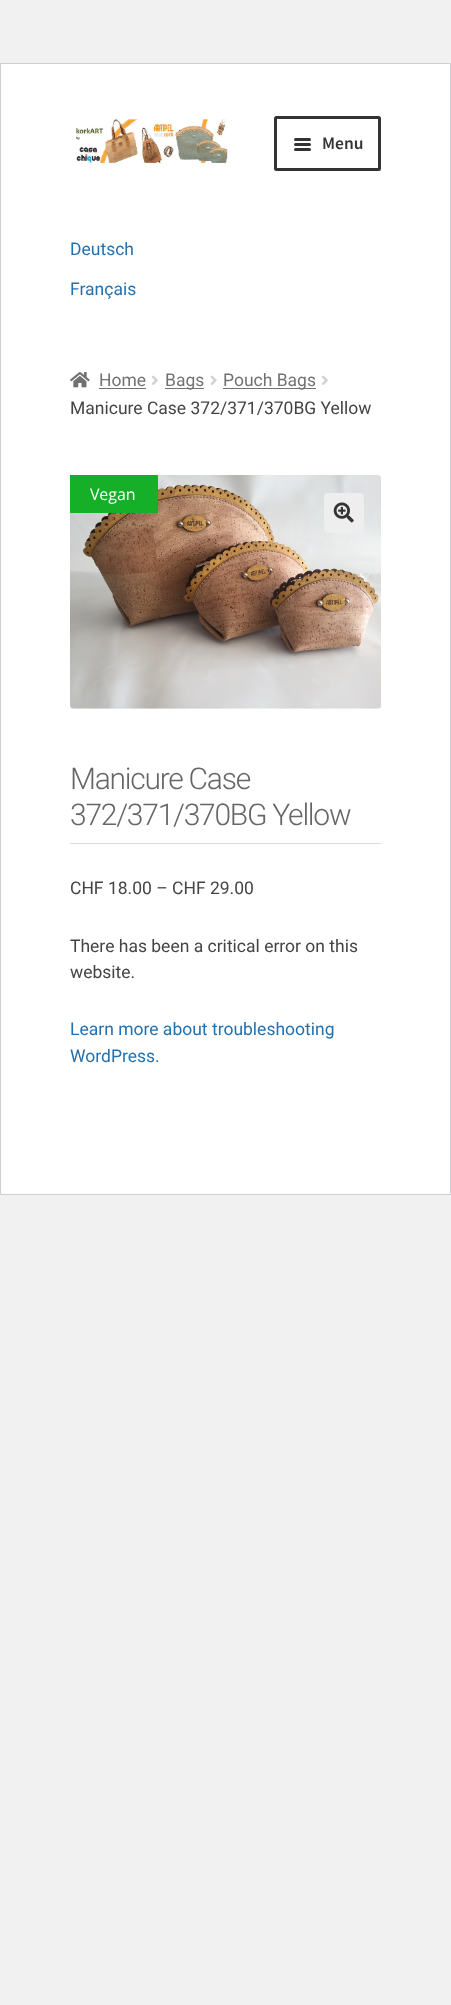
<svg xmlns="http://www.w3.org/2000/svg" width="451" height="2005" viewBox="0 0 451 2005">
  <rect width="100%" height="100%" fill="#f1f1f1"/>
  <path d="M0.5 63.5h450v1131H0.5z" fill="#fff" stroke="#ccd0d4"/>
  <image x="76" y="119" width="152" height="45" href="img/1.png"/>
  <rect x="275.5" y="117.5" width="104" height="52" rx="1" fill="none" stroke="#333" stroke-width="3"/>
  <rect x="294" y="138" width="17" height="3" rx="1.5" fill="#333"/>
  <rect x="294" y="143" width="17" height="3" rx="1.5" fill="#333"/>
  <rect x="294" y="148" width="17" height="3" rx="1.5" fill="#333"/>
  <image x="70" y="372" width="20" height="16" href="img/2.png"/>
  <path d="M99 388h47v1H99z" fill="#727272"/>
  <image x="152" y="375" width="6" height="10" href="img/3.png"/>
  <path d="M165 388h39v1H165z" fill="#727272"/>
  <image x="210" y="375" width="7" height="10" href="img/4.png"/>
  <path d="M223 388h93v1H223z" fill="#727272"/>
  <image x="322" y="375" width="6" height="10" href="img/3.png"/>
  <image x="70" y="475" width="311" height="234" href="img/5.png"/>
  <path d="M70 475h88v38H70z" fill="#16af28"/>
  <rect x="324" y="493" width="40" height="40" rx="4" fill="#eee"/>
  <image x="333" y="502" width="21" height="21" href="img/6.png"/>
  <path d="M70 843h311v1H70z" fill="#dadada"/>
  <text x="322" y="149" font-family="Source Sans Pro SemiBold" font-size="17.5" font-weight="600" fill="#333">Menu</text>
  <g font-family="Roboto" font-size="17.5" fill="#2271b1">
    <text x="70" y="255">Deutsch</text>
    <text x="70" y="295">Français</text>
  </g>
  <g font-family="Roboto" font-size="17.5" fill="#727272">
    <text x="99" y="386">Home</text>
    <text x="165" y="386">Bags</text>
    <text x="223" y="386">Pouch Bags</text>
  </g>
  <text x="70" y="414" font-family="Roboto" font-size="17.5" fill="#444">Manicure Case 372/371/370BG Yellow</text>
  <text x="90" y="500" font-family="Open Sans" font-size="16" fill="#fff">Vegan</text>
  <g font-family="Roboto" font-size="30" font-weight="300" letter-spacing="-1.25" fill="#666">
    <text x="70" y="789">Manicure Case</text>
    <text x="70" y="825">372/371/370BG Yellow</text>
  </g>
  <g font-family="Roboto" font-size="17.5" fill="#444">
    <text x="70" y="894">CHF 18.00 – CHF 29.00</text>
    <text x="70" y="952">There has been a critical error on this</text>
    <text x="70" y="978">website.</text>
  </g>
  <g font-family="Roboto" font-size="17.5" fill="#2271b1">
    <text x="70" y="1035">Learn more about troubleshooting</text>
    <text x="70" y="1062">WordPress.</text>
  </g>
</svg>
